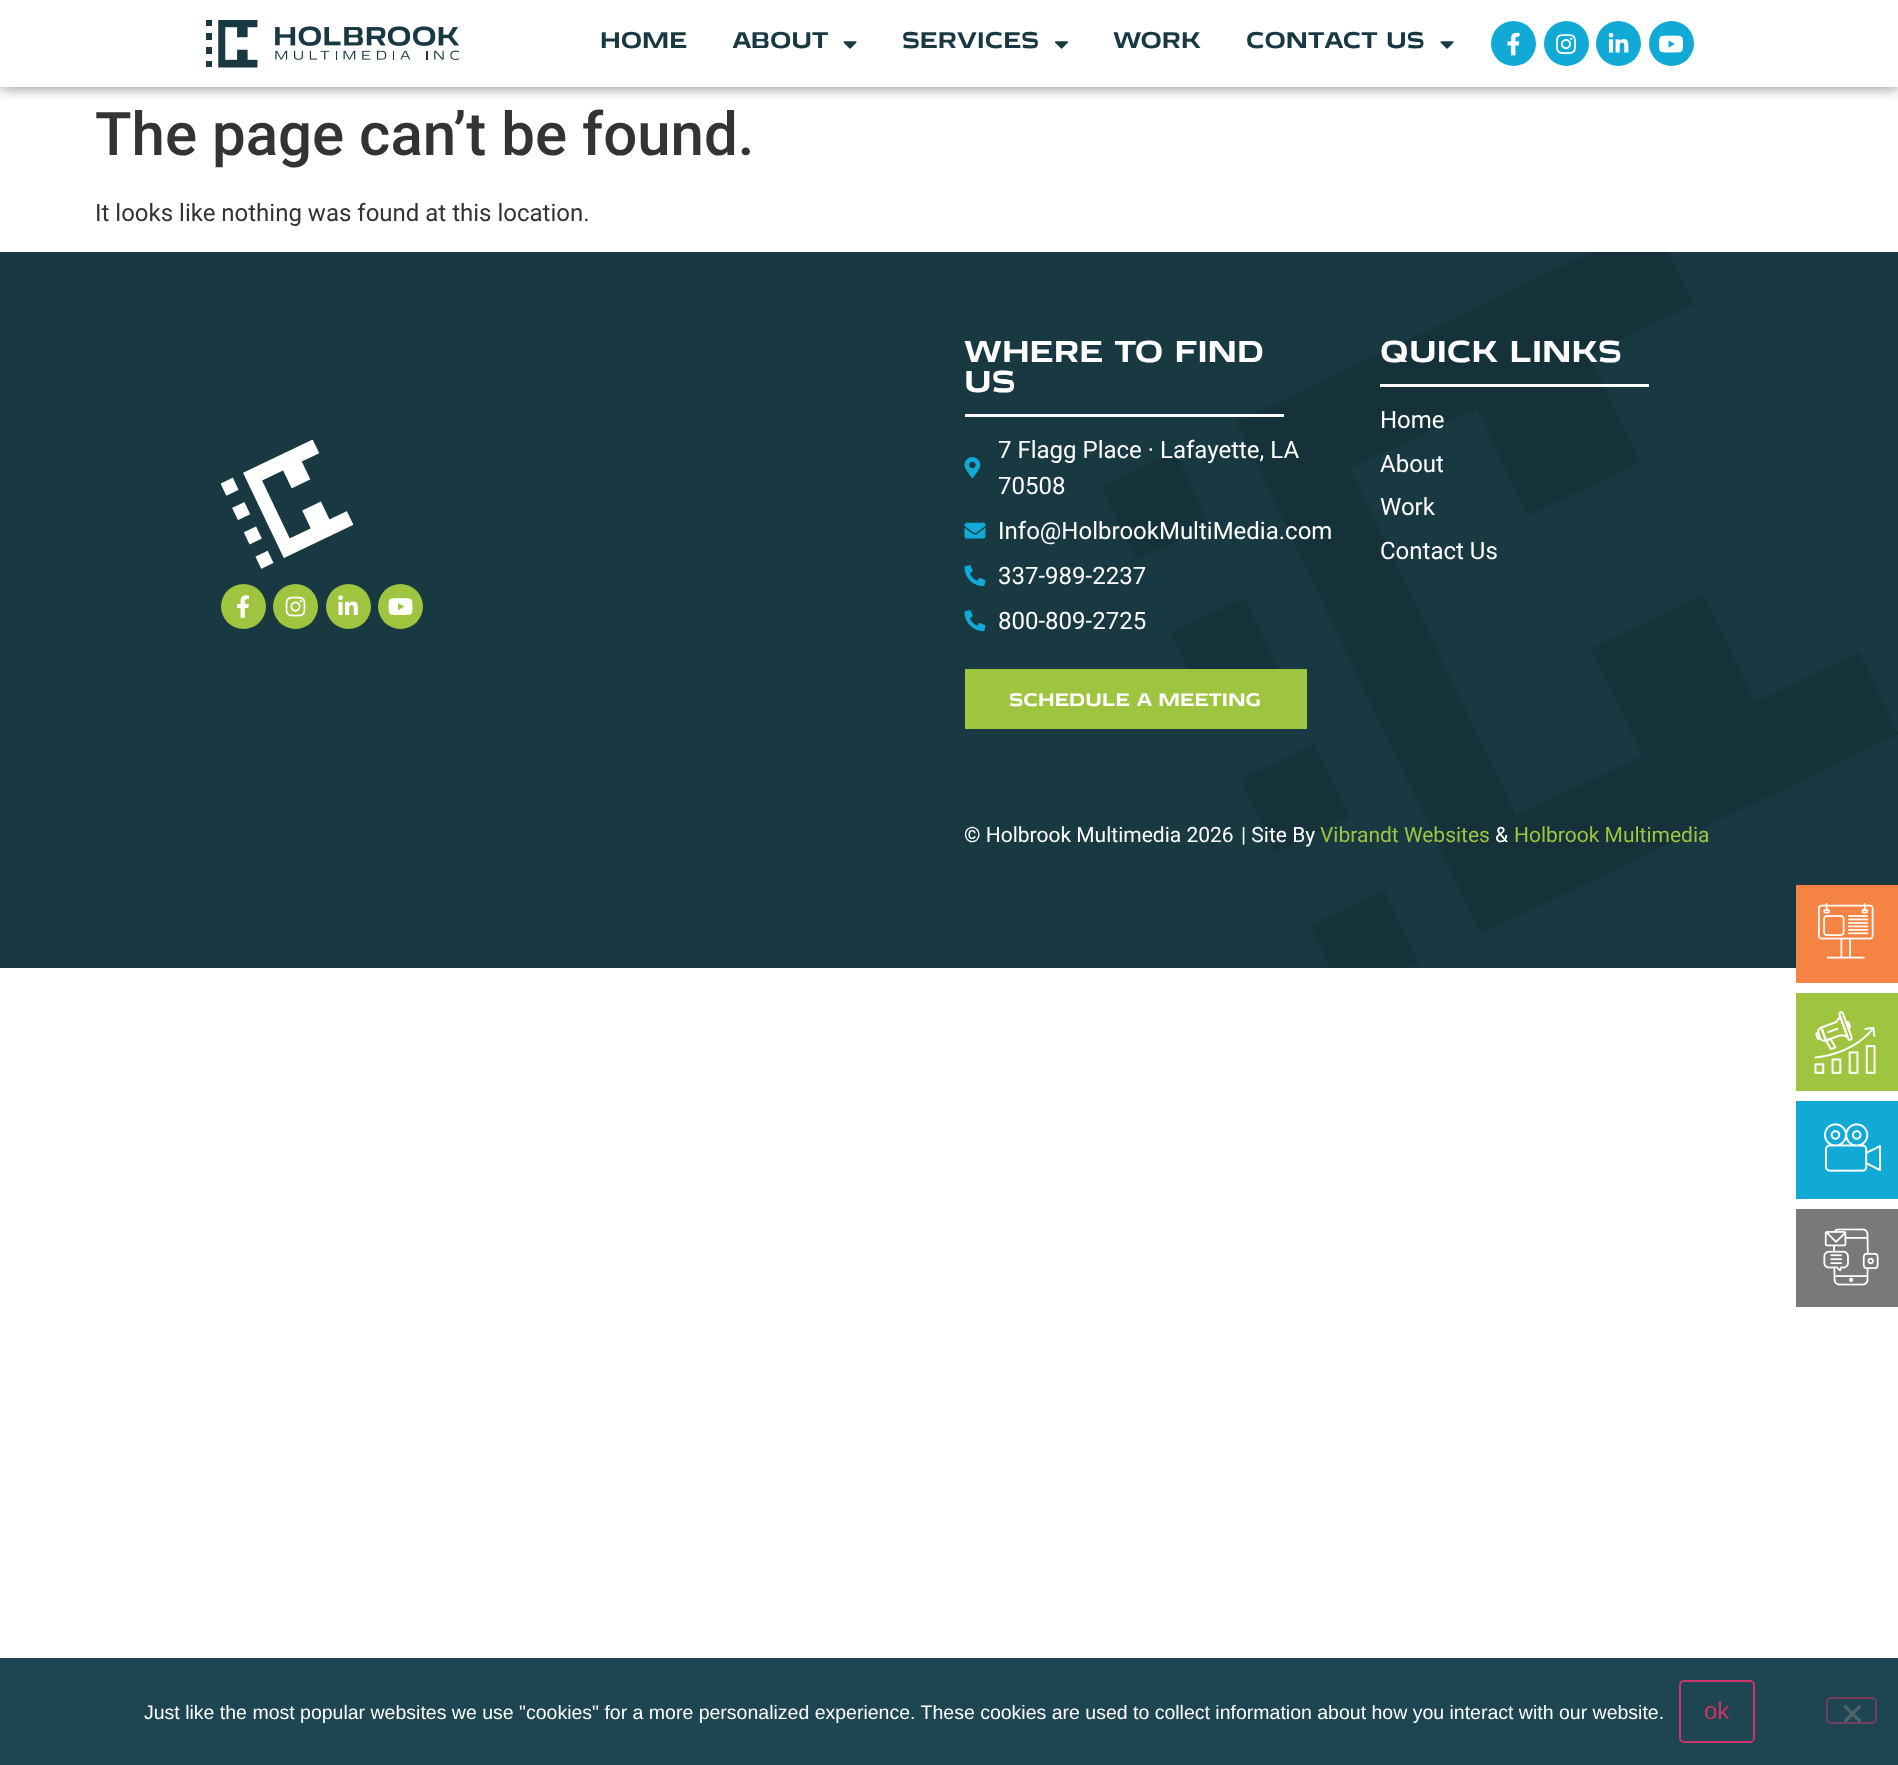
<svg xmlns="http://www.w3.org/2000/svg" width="1898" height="1765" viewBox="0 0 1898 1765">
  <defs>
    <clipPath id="clip1"><path d="M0 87h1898v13H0z"/></clipPath>
  </defs>
  <rect width="100%" height="100%" fill="#fff"/>
  <g clip-path="url(#clip1)">
    <path d="M0 0h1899v87H0z" fill="#00000080" filter="blur(7.5px)"/>
  </g>
  <image x="206" y="20" width="253" height="48" href="img/1.png"/>
  <image x="843" y="41" width="14" height="8" href="img/2.png"/>
  <image x="1055" y="41" width="13" height="8" href="img/3.png"/>
  <image x="1440" y="41" width="14" height="8" href="img/2.png"/>
  <circle cx="1513.5" cy="43.5" r="22.5" fill="#11aad6"/>
  <image x="1507" y="32" width="13" height="24" href="img/4.png"/>
  <circle cx="1566.5" cy="43.5" r="22.5" fill="#11aad6"/>
  <image x="1556" y="34" width="20" height="20" href="img/5.png"/>
  <circle cx="1618.5" cy="43.5" r="22.5" fill="#11aad6"/>
  <image x="1608" y="32" width="21" height="21" href="img/6.png"/>
  <circle cx="1671.5" cy="43.5" r="22.5" fill="#11aad6"/>
  <image x="1659" y="35" width="24" height="18" href="img/7.png"/>
  <path d="M0 252h1898v716H0z" fill="#183842"/>
  <image x="1101" y="252" width="797" height="716" href="img/12.png"/>
  <path d="M1796 885h102v98H1796z" fill="#f58343"/>
  <image x="1818" y="903" width="56" height="56" href="img/8.png"/>
  <path d="M1796 993h102v98H1796z" fill="#9fc43f"/>
  <image x="1814" y="1011" width="62" height="63" href="img/9.png"/>
  <path d="M1796 1101h102v98H1796z" fill="#11aad6"/>
  <image x="1824" y="1123" width="58" height="49" href="img/10.png"/>
  <path d="M1796 1209h102v98H1796z" fill="#797979"/>
  <image x="1823" y="1228" width="56" height="58" href="img/11.png"/>
  <image x="221" y="440" width="132" height="129" href="img/13.png"/>
  <circle cx="243.5" cy="606.5" r="22.5" fill="#9fc43f"/>
  <image x="237" y="595" width="12" height="23" href="img/14.png"/>
  <circle cx="295.5" cy="606.5" r="22.5" fill="#9fc43f"/>
  <image x="285" y="596" width="21" height="21" href="img/15.png"/>
  <circle cx="348.5" cy="606.5" r="22.5" fill="#9fc43f"/>
  <image x="338" y="595" width="20" height="20" href="img/16.png"/>
  <circle cx="400.5" cy="606.5" r="22.5" fill="#9fc43f"/>
  <image x="388" y="598" width="25" height="17" href="img/17.png"/>
  <path d="M965 414h319v3H965z" fill="#fff"/>
  <image x="964" y="457" width="17" height="22" href="img/18.png"/>
  <image x="964" y="522" width="22" height="17" href="img/19.png"/>
  <image x="964" y="565" width="22" height="22" href="img/20.png"/>
  <image x="964" y="610" width="22" height="22" href="img/20.png"/>
  <path d="M965 669h342v60H965z" fill="#9fc43f"/>
  <path d="M1380 384h269v3H1380z" fill="#fff"/>
  <path d="M0 1658h1898v107H0z" fill="#1e4552"/>
  <rect x="1680" y="1681" width="74" height="61" rx="4" fill="none" stroke="#c36" stroke-width="2"/>
  <rect x="1827" y="1698" width="49" height="25" rx="4" fill="none" stroke="#753c5c" stroke-width="2"/>
  <path d="M1859.5 1704.5L1861.5 1707L1845.5 1723L1843.5 1720.5Z" fill="#4f6369"/>
  <path d="M1843.5 1707L1845.5 1704.5L1861.5 1720.5L1859.5 1723Z" fill="#4f6369"/>
  <g font-family="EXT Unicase" font-size="22.5" font-weight="800" fill="#183842">
    <text x="600" y="48">HOME</text>
    <text x="732" y="48">ABOUT</text>
    <text x="902" y="48">SERVICES</text>
    <text x="1113" y="48">WORK</text>
    <text x="1246" y="48">CONTACT US</text>
  </g>
  <text x="95" y="155" font-family="Roboto" font-size="60" font-weight="500" fill="#333">The page can’t be found.</text>
  <text x="95" y="221" font-family="Roboto" font-size="24" fill="#333">It looks like nothing was found at this location.</text>
  <g font-family="EXT Unicase" font-size="30" font-weight="800" fill="#fff">
    <text x="964" y="362">WHERE TO FIND</text>
    <text x="964" y="392">US</text>
  </g>
  <g font-family="Roboto" font-size="24" fill="#fff">
    <text x="998" y="458">7 Flagg Place · Lafayette, LA</text>
    <text x="998" y="494">70508</text>
    <text x="998" y="539">Info@HolbrookMultiMedia.com</text>
    <text x="998" y="584">337-989-2237</text>
    <text x="998" y="629">800-809-2725</text>
  </g>
  <text x="1009" y="706" font-family="EXT Unicase" font-size="18" font-weight="800" fill="#fff">SCHEDULE A MEETING</text>
  <text x="1380" y="362" font-family="EXT Unicase" font-size="30" font-weight="800" fill="#fff">QUICK LINKS</text>
  <g font-family="Roboto" font-size="24" fill="#fff">
    <text x="1380" y="428">Home</text>
    <text x="1380" y="472">About</text>
    <text x="1380" y="515">Work</text>
    <text x="1380" y="559">Contact Us</text>
  </g>
  <g font-family="Roboto" font-size="21" fill="#fff">
    <text x="964" y="842">© Holbrook Multimedia 2026</text>
    <text x="1241" y="842">| Site By</text>
  </g>
  <text x="1320" y="842" font-family="Roboto" font-size="21" fill="#9fc43f">Vibrandt Websites</text>
  <text x="1495" y="842" font-family="Roboto" font-size="21" fill="#fff">&amp;</text>
  <text x="1514" y="842" font-family="Roboto" font-size="21" fill="#9fc43f">Holbrook Multimedia</text>
  <text x="144" y="1719" font-family="Liberation Sans" font-size="19.5" fill="#fff">Just like the most popular websites we use "cookies" for a more personalized experience. These cookies are used to collect information about how you interact with our website.</text>
  <text x="1704" y="1719" font-family="Liberation Sans" font-size="24" fill="#c36">ok</text>
</svg>
